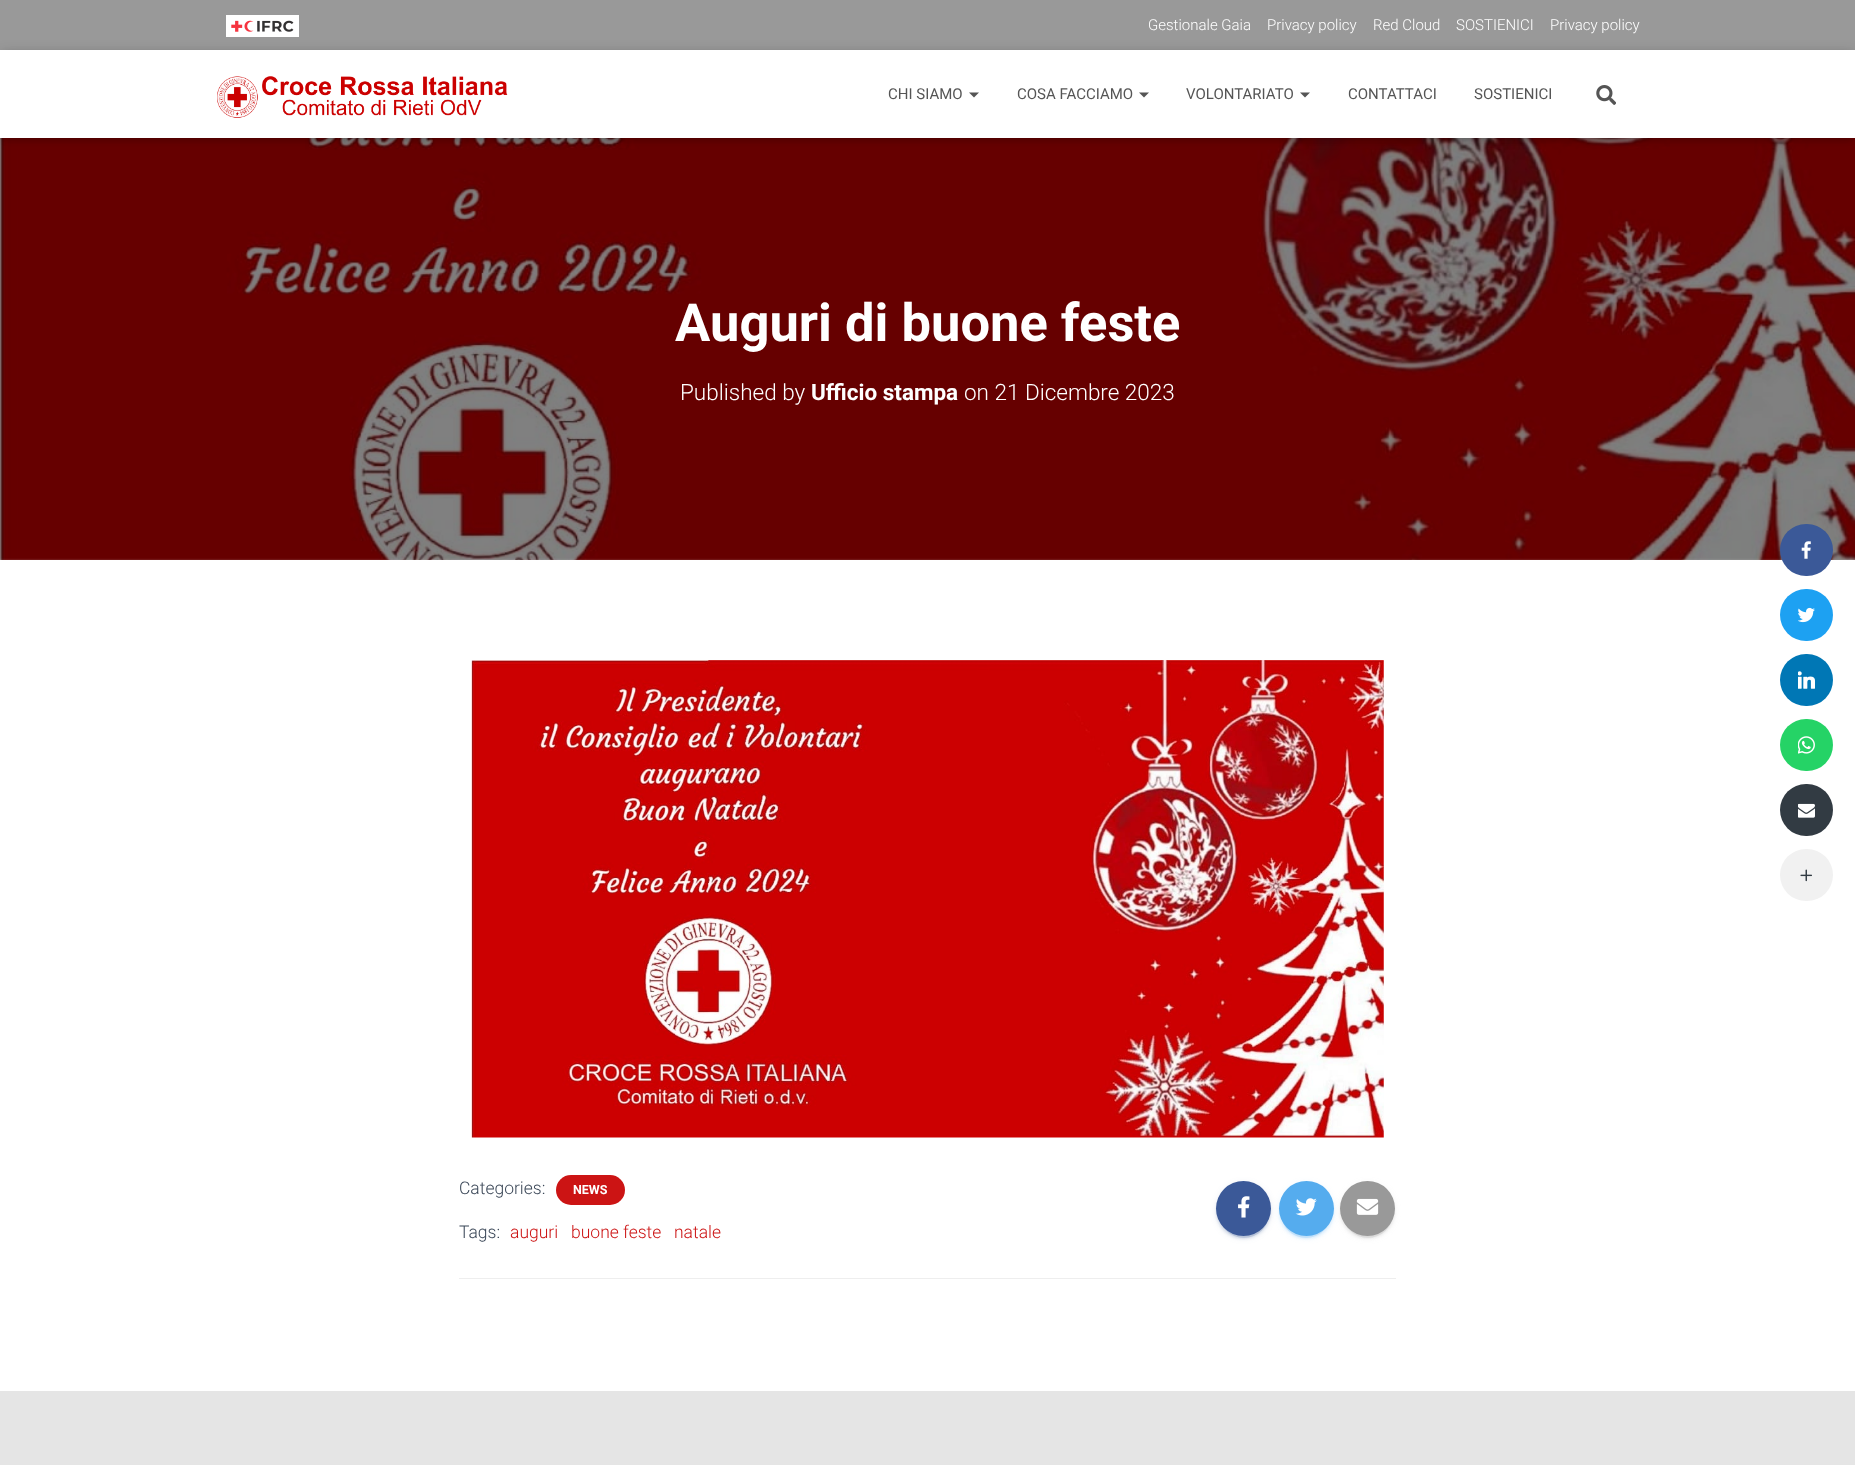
<svg xmlns="http://www.w3.org/2000/svg" width="1855" height="1465" viewBox="0 0 1855 1465">
  <rect width="100%" height="100%" fill="#e5e5e5"/>
  <path d="M0 0h1855v50H0z" fill="#999"/>
  <image x="226" y="15" width="73" height="22" href="img/1.png"/>
  <image x="0" y="138" width="1855" height="422" href="img/4.png"/>
  <path d="M3 58h1850v82H3z" fill="#0000001a" filter="blur(3px)"/>
  <path d="M0 51h1855v88H0z" fill="#0000001f" filter="blur(6px)"/>
  <path d="M8 59h1840v72H8z" fill="#0000006b" filter="blur(6px)"/>
  <path d="M0 50h1855v88H0z" fill="#fff"/>
  <image x="217" y="76" width="291" height="42" href="img/2.png"/>
  <path d="M969 92.5H979L974 97.5Z" fill="#555"/>
  <path d="M1139 92.5H1149L1144 97.5Z" fill="#555"/>
  <path d="M1300 92.5H1310L1305 97.5Z" fill="#555"/>
  <image x="1596" y="85" width="20" height="20" href="img/3.png"/>
  <path d="M0 560h1855v831H0z" fill="#fff"/>
  <image x="471" y="660" width="913" height="478" href="img/5.png"/>
  <rect x="556" y="1175" width="69" height="30" rx="15" fill="#cc1414"/>
  <rect x="1216" y="1183" width="55" height="55" rx="27.5" fill="#3b59981f" filter="blur(3px)"/>
  <rect x="1219" y="1188" width="50" height="50" rx="25" fill="#3b599833" filter="blur(0.5px)"/>
  <rect x="1216" y="1184" width="55" height="55" rx="27.5" fill="#3b599824" filter="blur(1px)"/>
  <circle cx="1243.5" cy="1208.5" r="27.5" fill="#3b5998"/>
  <image x="1238" y="1196" width="12" height="22" href="img/6.png"/>
  <rect x="1279" y="1183" width="55" height="55" rx="27.5" fill="#55acee1f" filter="blur(3px)"/>
  <rect x="1281" y="1188" width="50" height="50" rx="25" fill="#55acee33" filter="blur(0.5px)"/>
  <rect x="1279" y="1184" width="55" height="55" rx="27.5" fill="#55acee24" filter="blur(1px)"/>
  <circle cx="1306.5" cy="1208.5" r="27.5" fill="#55acee"/>
  <image x="1295" y="1198" width="22" height="18" href="img/7.png"/>
  <rect x="1340" y="1183" width="55" height="55" rx="27.5" fill="#9999991f" filter="blur(3px)"/>
  <rect x="1343" y="1188" width="50" height="50" rx="25" fill="#99999933" filter="blur(0.5px)"/>
  <rect x="1340" y="1184" width="55" height="55" rx="27.5" fill="#99999924" filter="blur(1px)"/>
  <circle cx="1367.5" cy="1208.5" r="27.5" fill="#999"/>
  <image x="1356" y="1198" width="23" height="17" href="img/8.png"/>
  <path d="M459 1278h937v1H459z" fill="#eee"/>
  <rect x="1780" y="524" width="53" height="52" rx="26" fill="#3b5998"/>
  <image x="1801" y="541" width="10" height="18" href="img/9.png"/>
  <rect x="1780" y="589" width="53" height="52" rx="26" fill="#1da1f2"/>
  <image x="1798" y="607" width="17" height="16" href="img/10.png"/>
  <rect x="1780" y="654" width="53" height="52" rx="26" fill="#0077b5"/>
  <image x="1798" y="671" width="17" height="18" href="img/11.png"/>
  <rect x="1780" y="719" width="53" height="52" rx="26" fill="#25d366"/>
  <image x="1798" y="736" width="17" height="18" href="img/12.png"/>
  <rect x="1780" y="784" width="53" height="52" rx="26" fill="#323b43"/>
  <image x="1798" y="803" width="17" height="15" href="img/13.png"/>
  <rect x="1780" y="849" width="53" height="52" rx="26" fill="#f1f1f1"/>
  <image x="1800" y="869" width="12" height="13" href="img/14.png"/>
  <g font-family="Roboto" font-size="15" font-weight="300" fill="#fff">
    <text x="1148" y="30">Gestionale Gaia</text>
    <text x="1267" y="30">Privacy policy</text>
    <text x="1373" y="30">Red Cloud</text>
    <text x="1456" y="30">SOSTIENICI</text>
    <text x="1550" y="30">Privacy policy</text>
  </g>
  <g font-family="Roboto" font-size="15" fill="#555">
    <text x="888" y="99">CHI SIAMO</text>
    <text x="1017" y="99">COSA FACCIAMO</text>
    <text x="1186" y="99">VOLONTARIATO</text>
    <text x="1348" y="99">CONTATTACI</text>
    <text x="1474" y="99">SOSTIENICI</text>
  </g>
  <text x="675" y="341" font-family="Roboto" font-size="52.5" font-weight="bold" fill="#fff">Auguri di buone feste</text>
  <text x="680" y="400" font-family="Roboto" font-size="22.5" font-weight="300" fill="#fff">Published by</text>
  <text x="811" y="400" font-family="Roboto" font-size="22.5" font-weight="bold" fill="#fff">Ufficio stampa</text>
  <text x="964" y="400" font-family="Roboto" font-size="22.5" font-weight="300" fill="#fff">on 21 Dicembre 2023</text>
  <text x="459" y="1194" font-family="Roboto" font-size="17.5" font-weight="300" fill="#3c4858">Categories:</text>
  <text x="573" y="1194" font-family="Roboto" font-size="12.5" font-weight="bold" fill="#fff">NEWS</text>
  <text x="459" y="1238" font-family="Roboto" font-size="17.5" font-weight="300" fill="#3c4858">Tags:</text>
  <g font-family="Roboto" font-size="17.5" font-weight="300" fill="#cc1414">
    <text x="510" y="1238">auguri</text>
    <text x="571" y="1238">buone feste</text>
    <text x="674" y="1238">natale</text>
  </g>
</svg>
